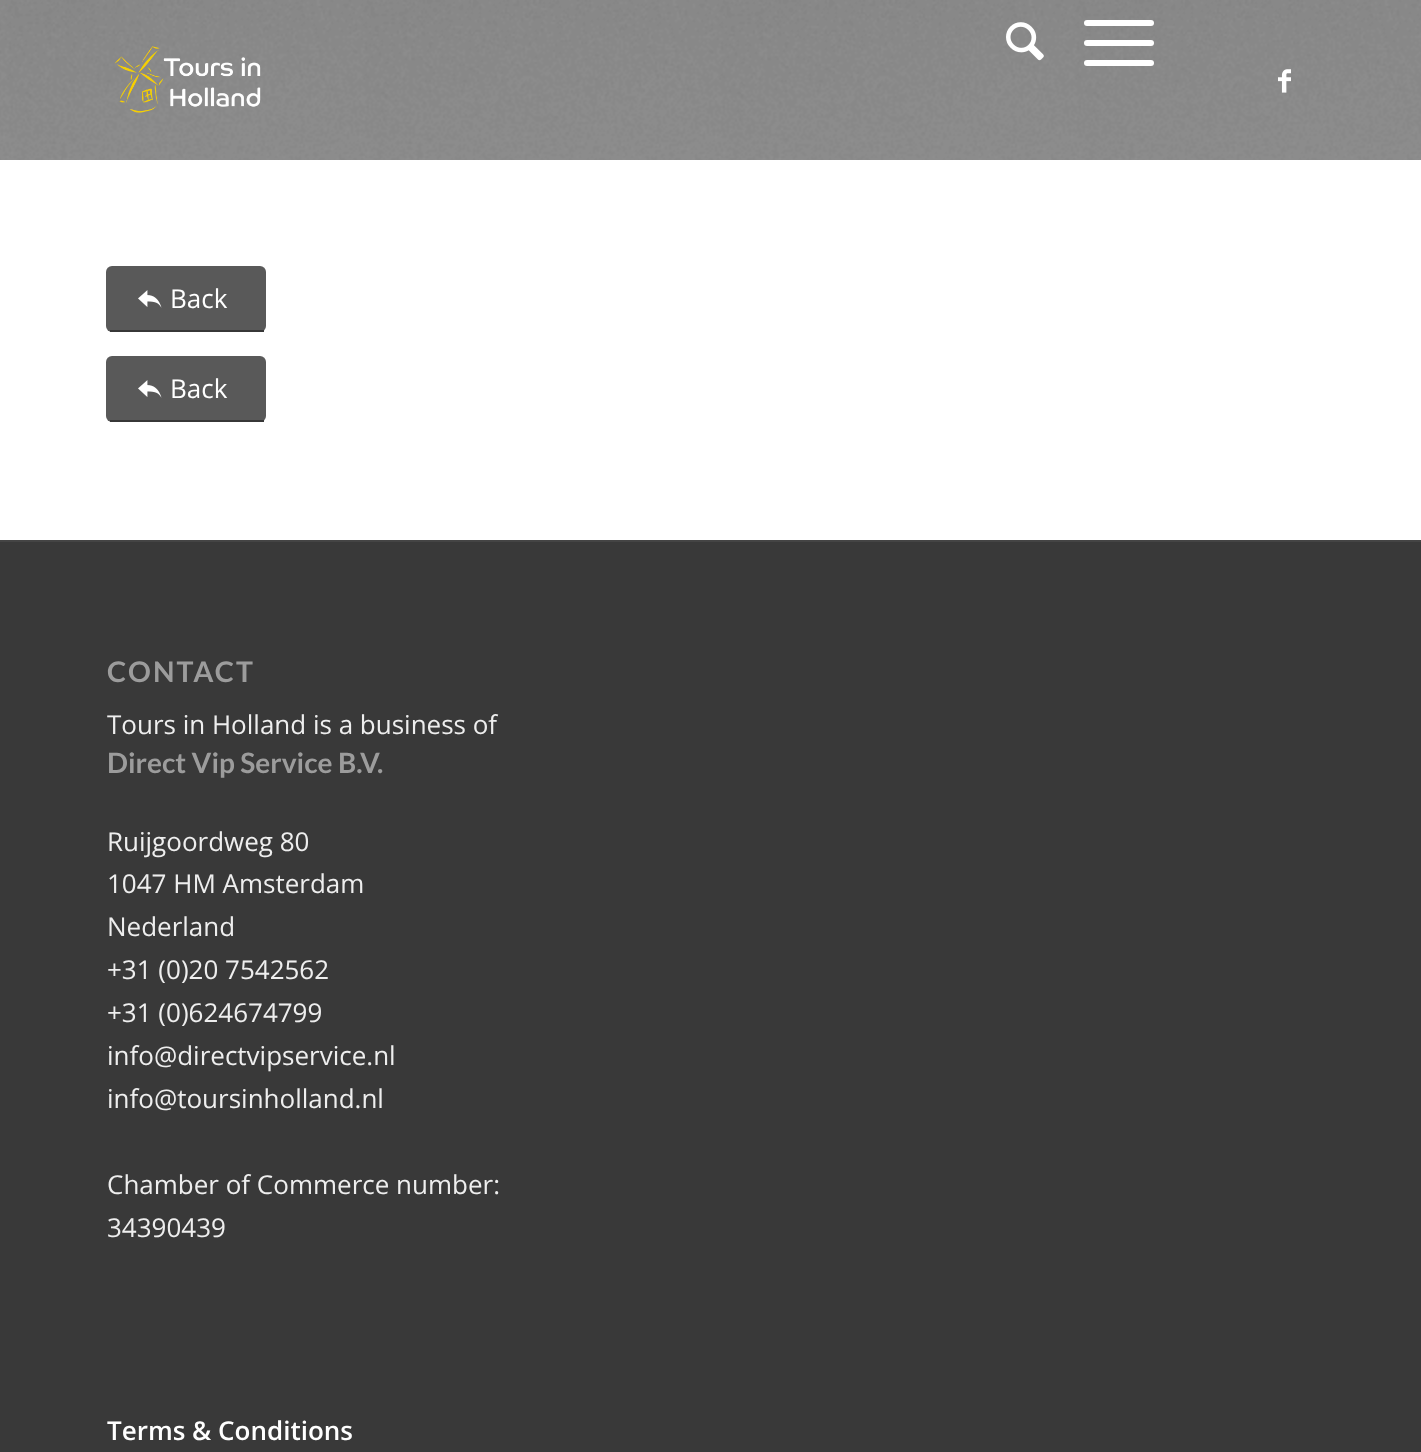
<svg xmlns="http://www.w3.org/2000/svg" width="1421" height="1452" viewBox="0 0 1421 1452">
  <rect width="100%" height="100%" fill="#fff"/>
  <path d="M0 0h1421v160H0z" fill="#858585"/>
  <image x="0" y="0" width="1421" height="160" href="img/1.png"/>
  <image x="114" y="46" width="147" height="67" href="img/2.png"/>
  <image x="1006" y="22" width="38" height="39" href="img/3.png"/>
  <rect x="1084" y="40" width="70" height="6" rx="3" fill="#fff"/>
  <rect x="1084" y="20" width="70" height="6" rx="3" fill="#fff"/>
  <rect x="1084" y="60" width="70" height="6" rx="3" fill="#fff"/>
  <image x="1278" y="69" width="13" height="24" href="img/4.png"/>
  <rect x="106" y="266" width="160" height="66" rx="6" fill="#595959"/>
  <path d="M110 330h154v2H110z" fill="#373737"/>
  <image x="138" y="290" width="24" height="18" href="img/5.png"/>
  <rect x="106" y="356" width="160" height="66" rx="6" fill="#595959"/>
  <path d="M110 420h154v2H110z" fill="#373737"/>
  <image x="138" y="380" width="24" height="18" href="img/5.png"/>
  <path d="M0 542h1421v910H0z" fill="#393939"/>
  <path d="M0 540h1421v2H0z" fill="#444"/>
  <g font-family="Open Sans" font-size="26" fill="#fff">
    <text x="170" y="308">Back</text>
    <text x="170" y="398">Back</text>
  </g>
  <text x="107" y="682" font-family="Lato" font-size="28.5" font-weight="bold" letter-spacing="2" fill="#9c9c9c">CONTACT</text>
  <text x="107" y="734" font-family="Open Sans" font-size="26" fill="#eee">Tours in Holland is a business of</text>
  <text x="107" y="773" font-family="Lato" font-size="28" font-weight="bold" fill="#9c9c9c">Direct Vip Service B.V.</text>
  <g font-family="Open Sans" font-size="26" fill="#eee">
    <text x="107" y="851">Ruijgoordweg 80</text>
    <text x="107" y="893">1047 HM Amsterdam</text>
    <text x="107" y="936">Nederland</text>
    <text x="107" y="979">+31 (0)20 7542562</text>
    <text x="107" y="1022">+31 (0)624674799</text>
    <text x="107" y="1065">info@directvipservice.nl</text>
    <text x="107" y="1108">info@toursinholland.nl</text>
    <text x="107" y="1194">Chamber of Commerce number:</text>
    <text x="107" y="1237">34390439</text>
  </g>
  <text x="107" y="1440" font-family="Open Sans" font-size="26" font-weight="600" fill="#fff">Terms &amp; Conditions</text>
</svg>
